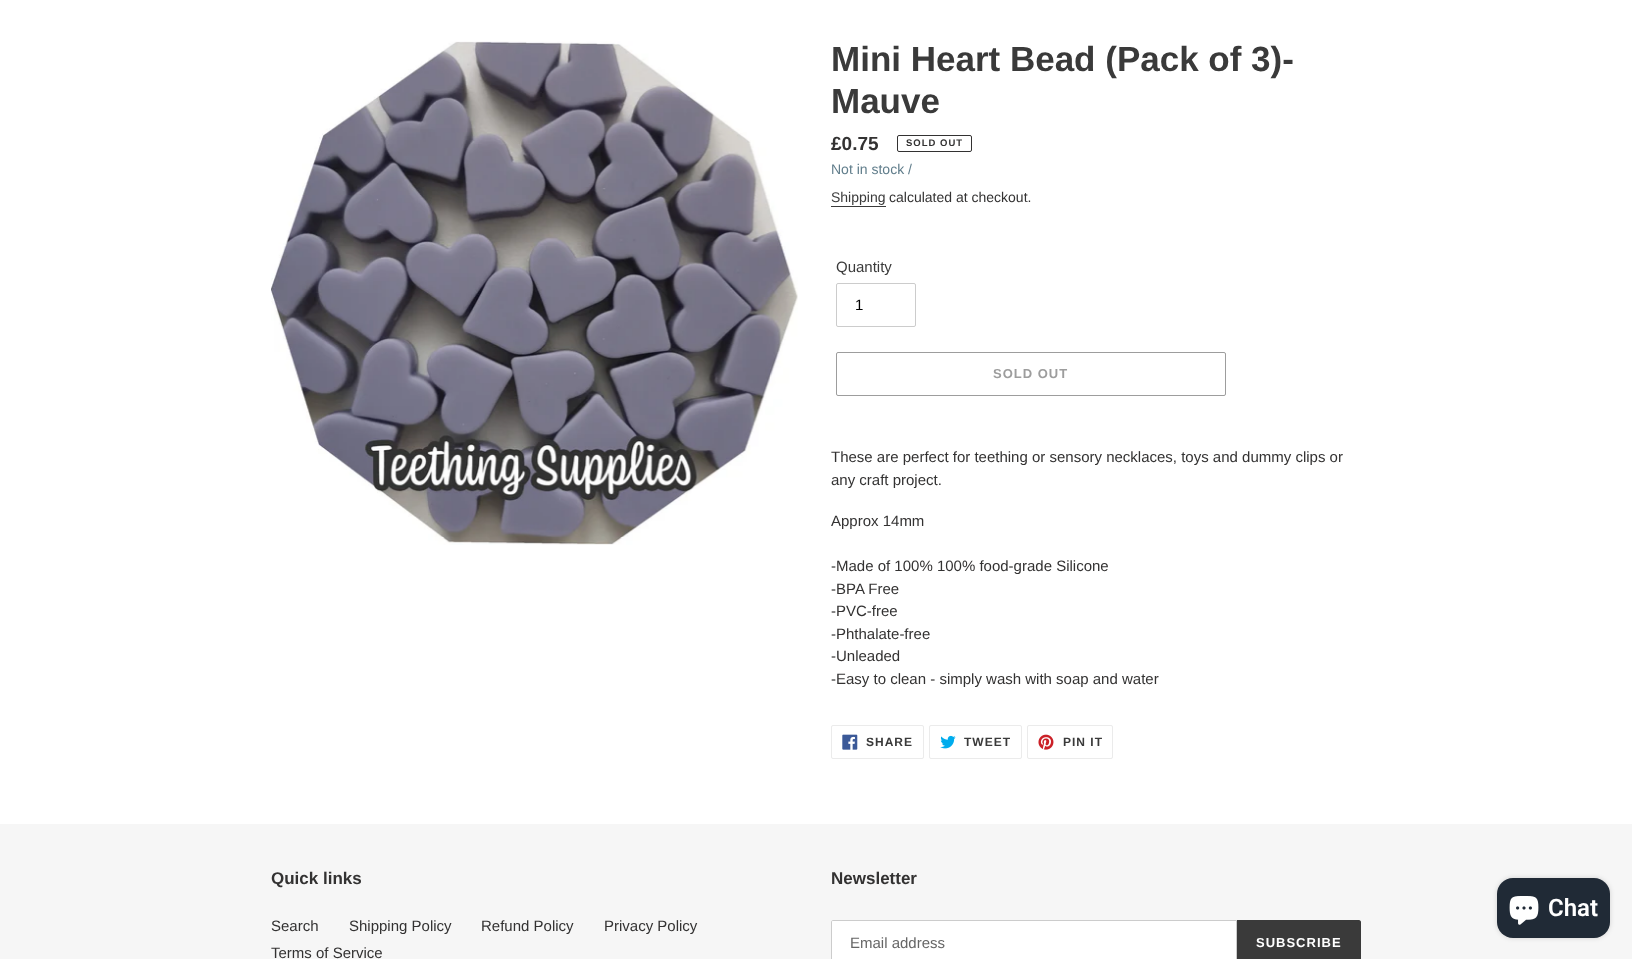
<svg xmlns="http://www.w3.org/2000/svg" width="1632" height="959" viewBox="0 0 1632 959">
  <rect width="100%" height="100%" fill="#fff"/>
  <image x="271" y="41" width="527" height="504" href="img/1.png"/>
  <rect x="897.5" y="135.5" width="74" height="16" rx="1.5" fill="none" stroke="#333232"/>
  <path d="M831 206h55v1H831z" fill="#3a3a3a"/>
  <rect x="836.5" y="283.5" width="79" height="43" rx="1.5" fill="none" stroke="#ccc"/>
  <rect x="836.5" y="352.5" width="389" height="43" rx="1.5" fill="none" stroke="#9d9d9d"/>
  <rect x="831.5" y="725.5" width="92" height="33" rx="1.5" fill="none" stroke="#ebebeb"/>
  <image x="842" y="734" width="16" height="16" href="img/2.png"/>
  <rect x="929.5" y="725.5" width="92" height="33" rx="1.5" fill="none" stroke="#ebebeb"/>
  <image x="940" y="735" width="16" height="14" href="img/3.png"/>
  <rect x="1027.5" y="725.5" width="85" height="33" rx="1.5" fill="none" stroke="#ebebeb"/>
  <image x="1038" y="734" width="16" height="16" href="img/4.png"/>
  <path d="M0 824h1632v135H0z" fill="#f6f6f6"/>
  <path d="M833 920.5H1236.5V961.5H833C832 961.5 831.5 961 831.5 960V922C831.5 921 832 920.5 833 920.5Z" fill="#fff" stroke="#ccc"/>
  <path d="M1237 920H1359C1360 920 1361 921 1361 922V959C1361 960 1360 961 1359 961H1237Z" fill="#3a3a3a"/>
  <rect x="1497" y="878" width="113" height="60" rx="16" fill="#00000026" filter="blur(2.5px)"/>
  <rect x="1497" y="878" width="113" height="60" rx="16" fill="#202a36"/>
  <image x="1509" y="896" width="30" height="29" href="img/5.png"/>
  <g font-family="Liberation Sans" font-size="35" font-weight="bold" fill="#3a3a3a">
    <text x="831" y="71">Mini Heart Bead (Pack of 3)-</text>
    <text x="831" y="113">Mauve</text>
  </g>
  <text x="831" y="150" font-family="Liberation Sans" font-size="19" font-weight="bold" fill="#333232">£0.75</text>
  <text x="906" y="146" font-family="Liberation Sans" font-size="9.5" font-weight="bold" letter-spacing="1" fill="#333232">SOLD OUT</text>
  <text x="831" y="174" font-family="Liberation Sans" font-size="14" fill="#607d8b">Not in stock /</text>
  <text x="831" y="202" font-family="Liberation Sans" font-size="14" fill="#3a3a3a">Shipping</text>
  <text x="889" y="202" font-family="Liberation Sans" font-size="14" fill="#333232">calculated at checkout.</text>
  <text x="836" y="272" font-family="Liberation Sans" font-size="15" fill="#3a3a3a">Quantity</text>
  <text x="855" y="310" font-family="Liberation Sans" font-size="15" fill="#000">1</text>
  <text x="993" y="378" font-family="Liberation Sans" font-size="13" font-weight="bold" letter-spacing="1" fill="#9d9d9d">SOLD OUT</text>
  <g font-family="Liberation Sans" font-size="15" fill="#333232">
    <text x="831" y="462">These are perfect for teething or sensory necklaces, toys and dummy clips or</text>
    <text x="831" y="485">any craft project.</text>
    <text x="831" y="526">Approx 14mm</text>
    <text x="831" y="571">-Made of 100% 100% food-grade Silicone</text>
    <text x="831" y="594">-BPA Free</text>
    <text x="831" y="616">-PVC-free</text>
    <text x="831" y="639">-Phthalate-free</text>
    <text x="831" y="661">-Unleaded</text>
    <text x="831" y="684">-Easy to clean - simply wash with soap and water</text>
  </g>
  <g font-family="Liberation Sans" font-size="12" font-weight="bold" letter-spacing="1" fill="#3a3a3a">
    <text x="866" y="746">SHARE</text>
    <text x="964" y="746">TWEET</text>
    <text x="1063" y="746">PIN IT</text>
  </g>
  <text x="271" y="884" font-family="Liberation Sans" font-size="17" font-weight="bold" fill="#333232">Quick links</text>
  <g font-family="Liberation Sans" font-size="15" fill="#333232">
    <text x="271" y="931">Search</text>
    <text x="349" y="931">Shipping Policy</text>
    <text x="481" y="931">Refund Policy</text>
    <text x="604" y="931">Privacy Policy</text>
    <text x="271" y="958">Terms of Service</text>
  </g>
  <text x="831" y="884" font-family="Liberation Sans" font-size="17" font-weight="bold" fill="#333232">Newsletter</text>
  <text x="850" y="948" font-family="Liberation Sans" font-size="15" fill="#666">Email address</text>
  <text x="1256" y="947" font-family="Liberation Sans" font-size="13" font-weight="bold" letter-spacing="1" fill="#fff">SUBSCRIBE</text>
  <text x="1548" y="916" font-family="Roboto" font-size="24" font-weight="600" fill="#fff">Chat</text>
</svg>
